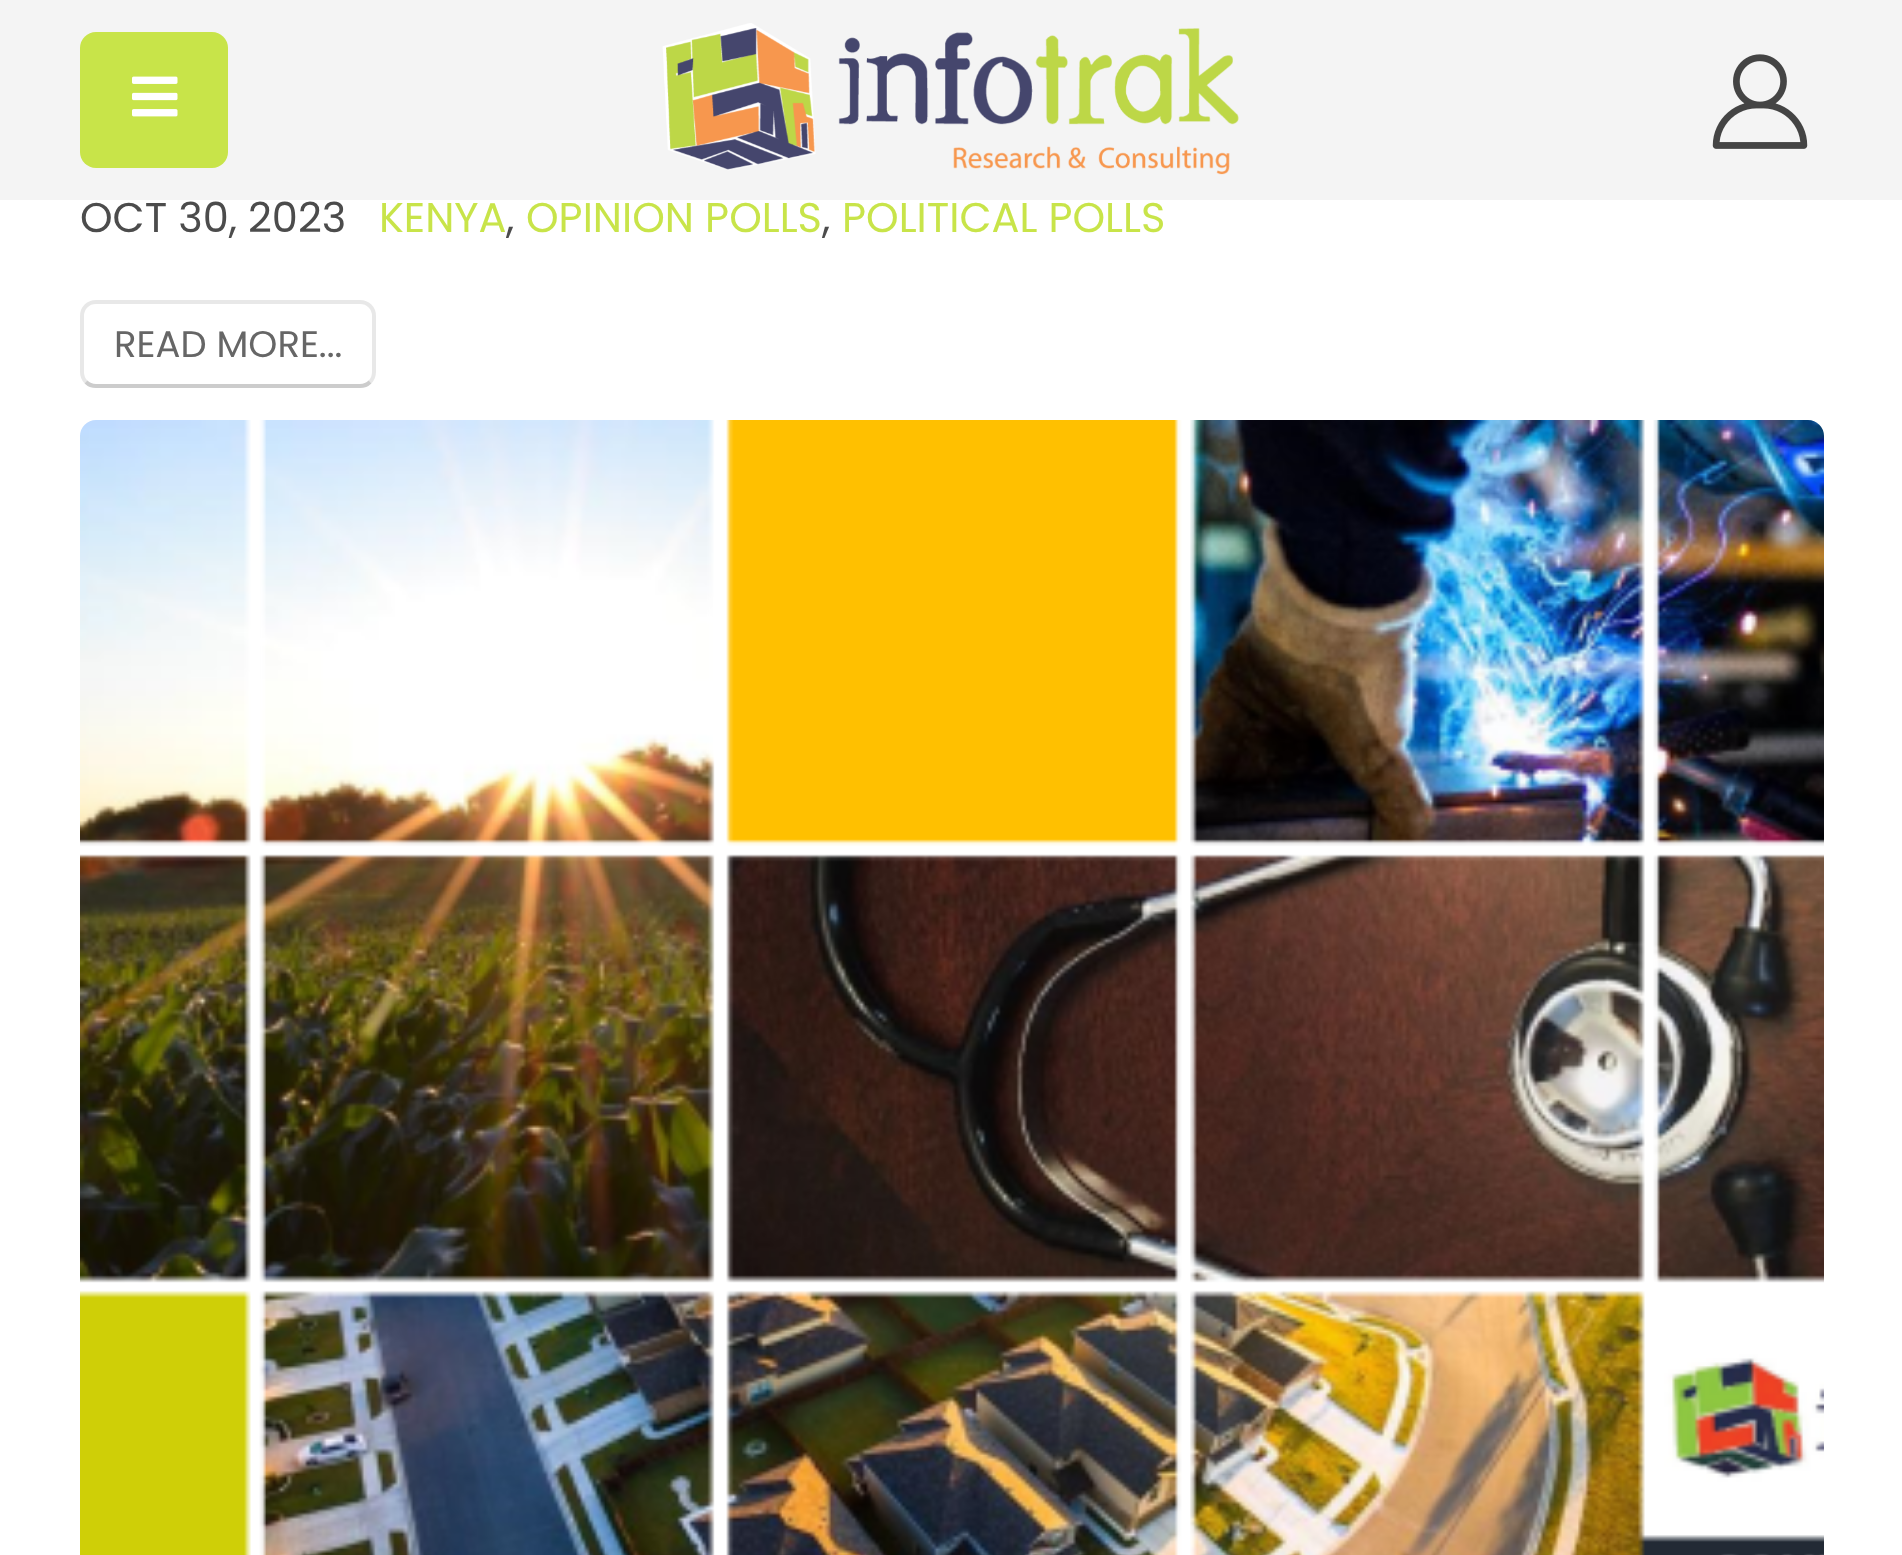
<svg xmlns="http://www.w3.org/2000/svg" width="1902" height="1555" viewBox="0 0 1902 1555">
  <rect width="100%" height="100%" fill="#f4f4f4"/>
  <rect x="80" y="32" width="148" height="136" rx="16" fill="#c8e449"/>
  <image x="132" y="76" width="46" height="41" href="img/1.png"/>
  <image x="662" y="23" width="577" height="152" href="img/2.png"/>
  <image x="1712" y="54" width="96" height="95" href="img/3.png"/>
  <path d="M0 200h1902v1355H0z" fill="#fff"/>
  <path d="M370 382C367.5 384.5 363.5 386 360 386H96C92.5 386 88.5 384.5 86 382" fill="none" stroke="#ccc" stroke-width="4"/>
  <path d="M86 382C83.5 379.5 82 375.5 82 372V316C82 312.5 83.5 308.5 86 306C88.5 303.5 92.5 302 96 302H360C363.5 302 367.5 303.5 370 306C372.5 308.5 374 312.5 374 316V372C374 375.5 372.5 379.5 370 382" fill="none" stroke="#00000017" stroke-width="4"/>
  <image x="80" y="420" width="1744" height="1135" href="img/4.png"/>
  <text x="80" y="232" font-family="Poppins" font-size="41.5" fill="#4c4c4c">OCT 30, 2023</text>
  <text x="379" y="232" font-family="Poppins" font-size="41.5" fill="#c8e449">KENYA</text>
  <text x="506" y="232" font-family="Poppins" font-size="41.5" fill="#4c4c4c">,</text>
  <text x="526" y="232" font-family="Poppins" font-size="41.5" fill="#c8e449">OPINION POLLS</text>
  <text x="822" y="232" font-family="Poppins" font-size="41.5" fill="#4c4c4c">,</text>
  <text x="842" y="232" font-family="Poppins" font-size="41.5" fill="#c8e449">POLITICAL POLLS</text>
  <text x="114" y="357" font-family="Poppins" font-size="37" fill="#666">READ MORE...</text>
</svg>
